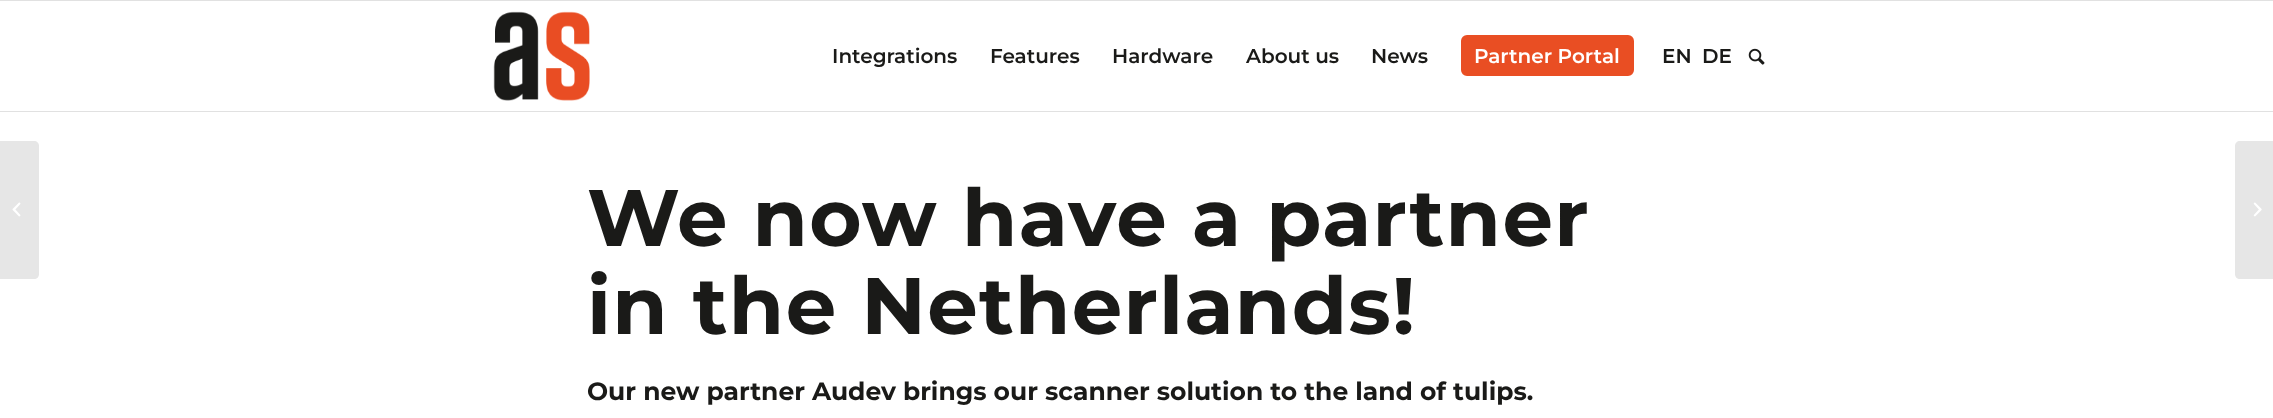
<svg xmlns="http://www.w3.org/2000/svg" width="2273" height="418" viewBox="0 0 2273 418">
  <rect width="100%" height="100%" fill="#fff"/>
  <path d="M0 0h2273v1H0z" fill="#e1e1e1"/>
  <path d="M0 111h2273v1H0z" fill="#e1e1e1"/>
  <image x="493" y="11" width="97" height="90" href="img/1.png"/>
  <rect x="1462.5" y="36.5" width="170" height="38" rx="4.5" fill="#e94e23" stroke="#e94e23" stroke-width="3"/>
  <image x="1748" y="48" width="17" height="17" href="img/2.png"/>
  <path d="M0 141H34C37 141 39 143 39 146V274C39 277 37 279 34 279H0Z" fill="#e6e6e6"/>
  <image x="12" y="202" width="9" height="15" href="img/3.png"/>
  <path d="M2240 141H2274V279H2240C2237 279 2235 277 2235 274V146C2235 143 2237 141 2240 141Z" fill="#e6e6e6"/>
  <image x="2253" y="202" width="9" height="15" href="img/4.png"/>
  <g font-family="Montserrat" font-size="20" font-weight="600" fill="#1a1a18">
    <text x="832" y="63">Integrations</text>
    <text x="990" y="63">Features</text>
    <text x="1112" y="63">Hardware</text>
    <text x="1246" y="63">About us</text>
    <text x="1371" y="63">News</text>
  </g>
  <text x="1474" y="63" font-family="Montserrat" font-size="20" font-weight="600" fill="#fff">Partner Portal</text>
  <g font-family="Montserrat" font-size="20" font-weight="600" fill="#1a1a18">
    <text x="1662" y="63">EN</text>
    <text x="1702" y="63">DE</text>
  </g>
  <g font-family="Montserrat" font-size="80" font-weight="bold" letter-spacing="1.25" fill="#1a1a18">
    <text x="587" y="246">We now have a partner</text>
    <text x="587" y="334">in the Netherlands!</text>
  </g>
  <text x="587" y="400" font-family="Montserrat" font-size="25" font-weight="bold" fill="#1a1a18">Our new partner Audev brings our scanner solution to the land of tulips.</text>
</svg>
